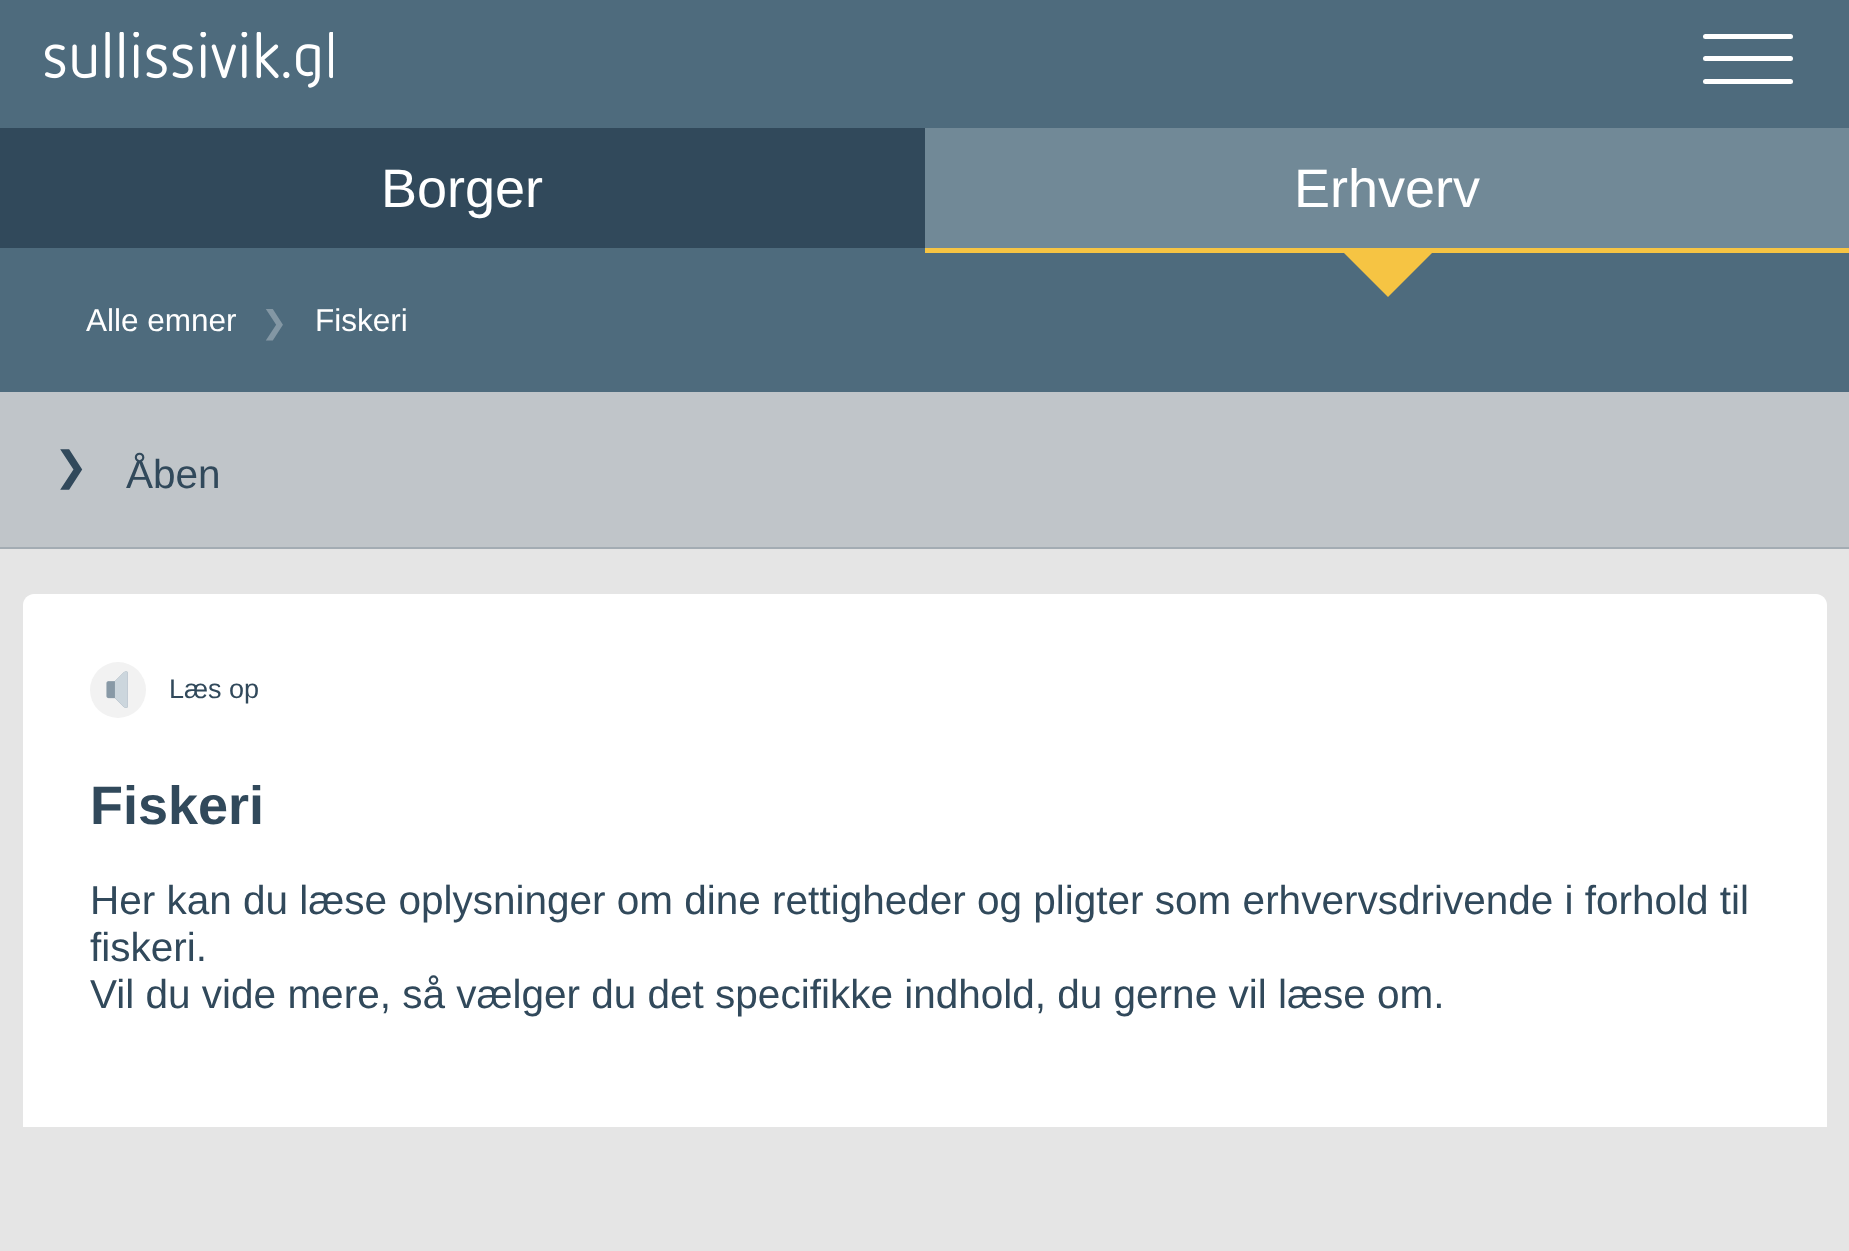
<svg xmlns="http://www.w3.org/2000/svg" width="1849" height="1251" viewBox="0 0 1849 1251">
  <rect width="100%" height="100%" fill="#e5e5e5"/>
  <path d="M0 0h1849v128H0z" fill="#4e6b7d"/>
  <image x="45" y="32" width="288" height="56" href="img/1.png"/>
  <rect x="1703" y="34" width="90" height="5" rx="2.5" fill="#fff"/>
  <rect x="1703" y="56" width="90" height="5" rx="2.5" fill="#fff"/>
  <rect x="1703" y="79" width="90" height="5" rx="2.5" fill="#fff"/>
  <path d="M0 128h925v120H0z" fill="#31495b"/>
  <path d="M925 128h924v120H925z" fill="#718997"/>
  <path d="M0 248h1849v144H0z" fill="#4e6b7d"/>
  <path d="M925 248h924v5H925z" fill="#f6c443"/>
  <path d="M1343 252H1433L1388 297Z" fill="#f6c443"/>
  <path d="M0 392h1849v155H0z" fill="#c0c5c9"/>
  <path d="M0 547h1849v2H0z" fill="#a3acb3"/>
  <path d="M34 594H1816C1822 594 1827 599 1827 605V1127H23V605C23 599 28 594 34 594Z" fill="#fff"/>
  <circle cx="118" cy="690" r="28" fill="#f2f2f2"/>
  <image x="106" y="671" width="22" height="37" href="img/2.png"/>
  <g font-family="Liberation Sans" font-size="54" fill="#fff">
    <text x="381" y="207">Borger</text>
    <text x="1294" y="207">Erhverv</text>
  </g>
  <text x="86" y="331" font-family="Liberation Sans" font-size="31.5" fill="#fff">Alle emner</text>
  <text x="261" y="333" font-family="DejaVu Sans" font-size="31.5" fill="#8397a4">❯</text>
  <text x="315" y="331" font-family="Liberation Sans" font-size="31.5" fill="#fff">Fiskeri</text>
  <text x="54" y="480" font-family="DejaVu Sans" font-size="40.5" fill="#31495b">❯</text>
  <text x="126" y="488" font-family="Liberation Sans" font-size="40.5" fill="#31495b">Åben</text>
  <text x="169" y="698" font-family="Liberation Sans" font-size="27" fill="#31495b">Læs op</text>
  <text x="90" y="824" font-family="Liberation Sans" font-size="54" font-weight="bold" fill="#31495b">Fiskeri</text>
  <g font-family="Liberation Sans" font-size="40.5" fill="#31495b">
    <text x="90" y="914">Her kan du læse oplysninger om dine rettigheder og pligter som erhvervsdrivende i forhold til</text>
    <text x="90" y="961">fiskeri.</text>
    <text x="90" y="1008">Vil du vide mere, så vælger du det specifikke indhold, du gerne vil læse om.</text>
  </g>
</svg>
